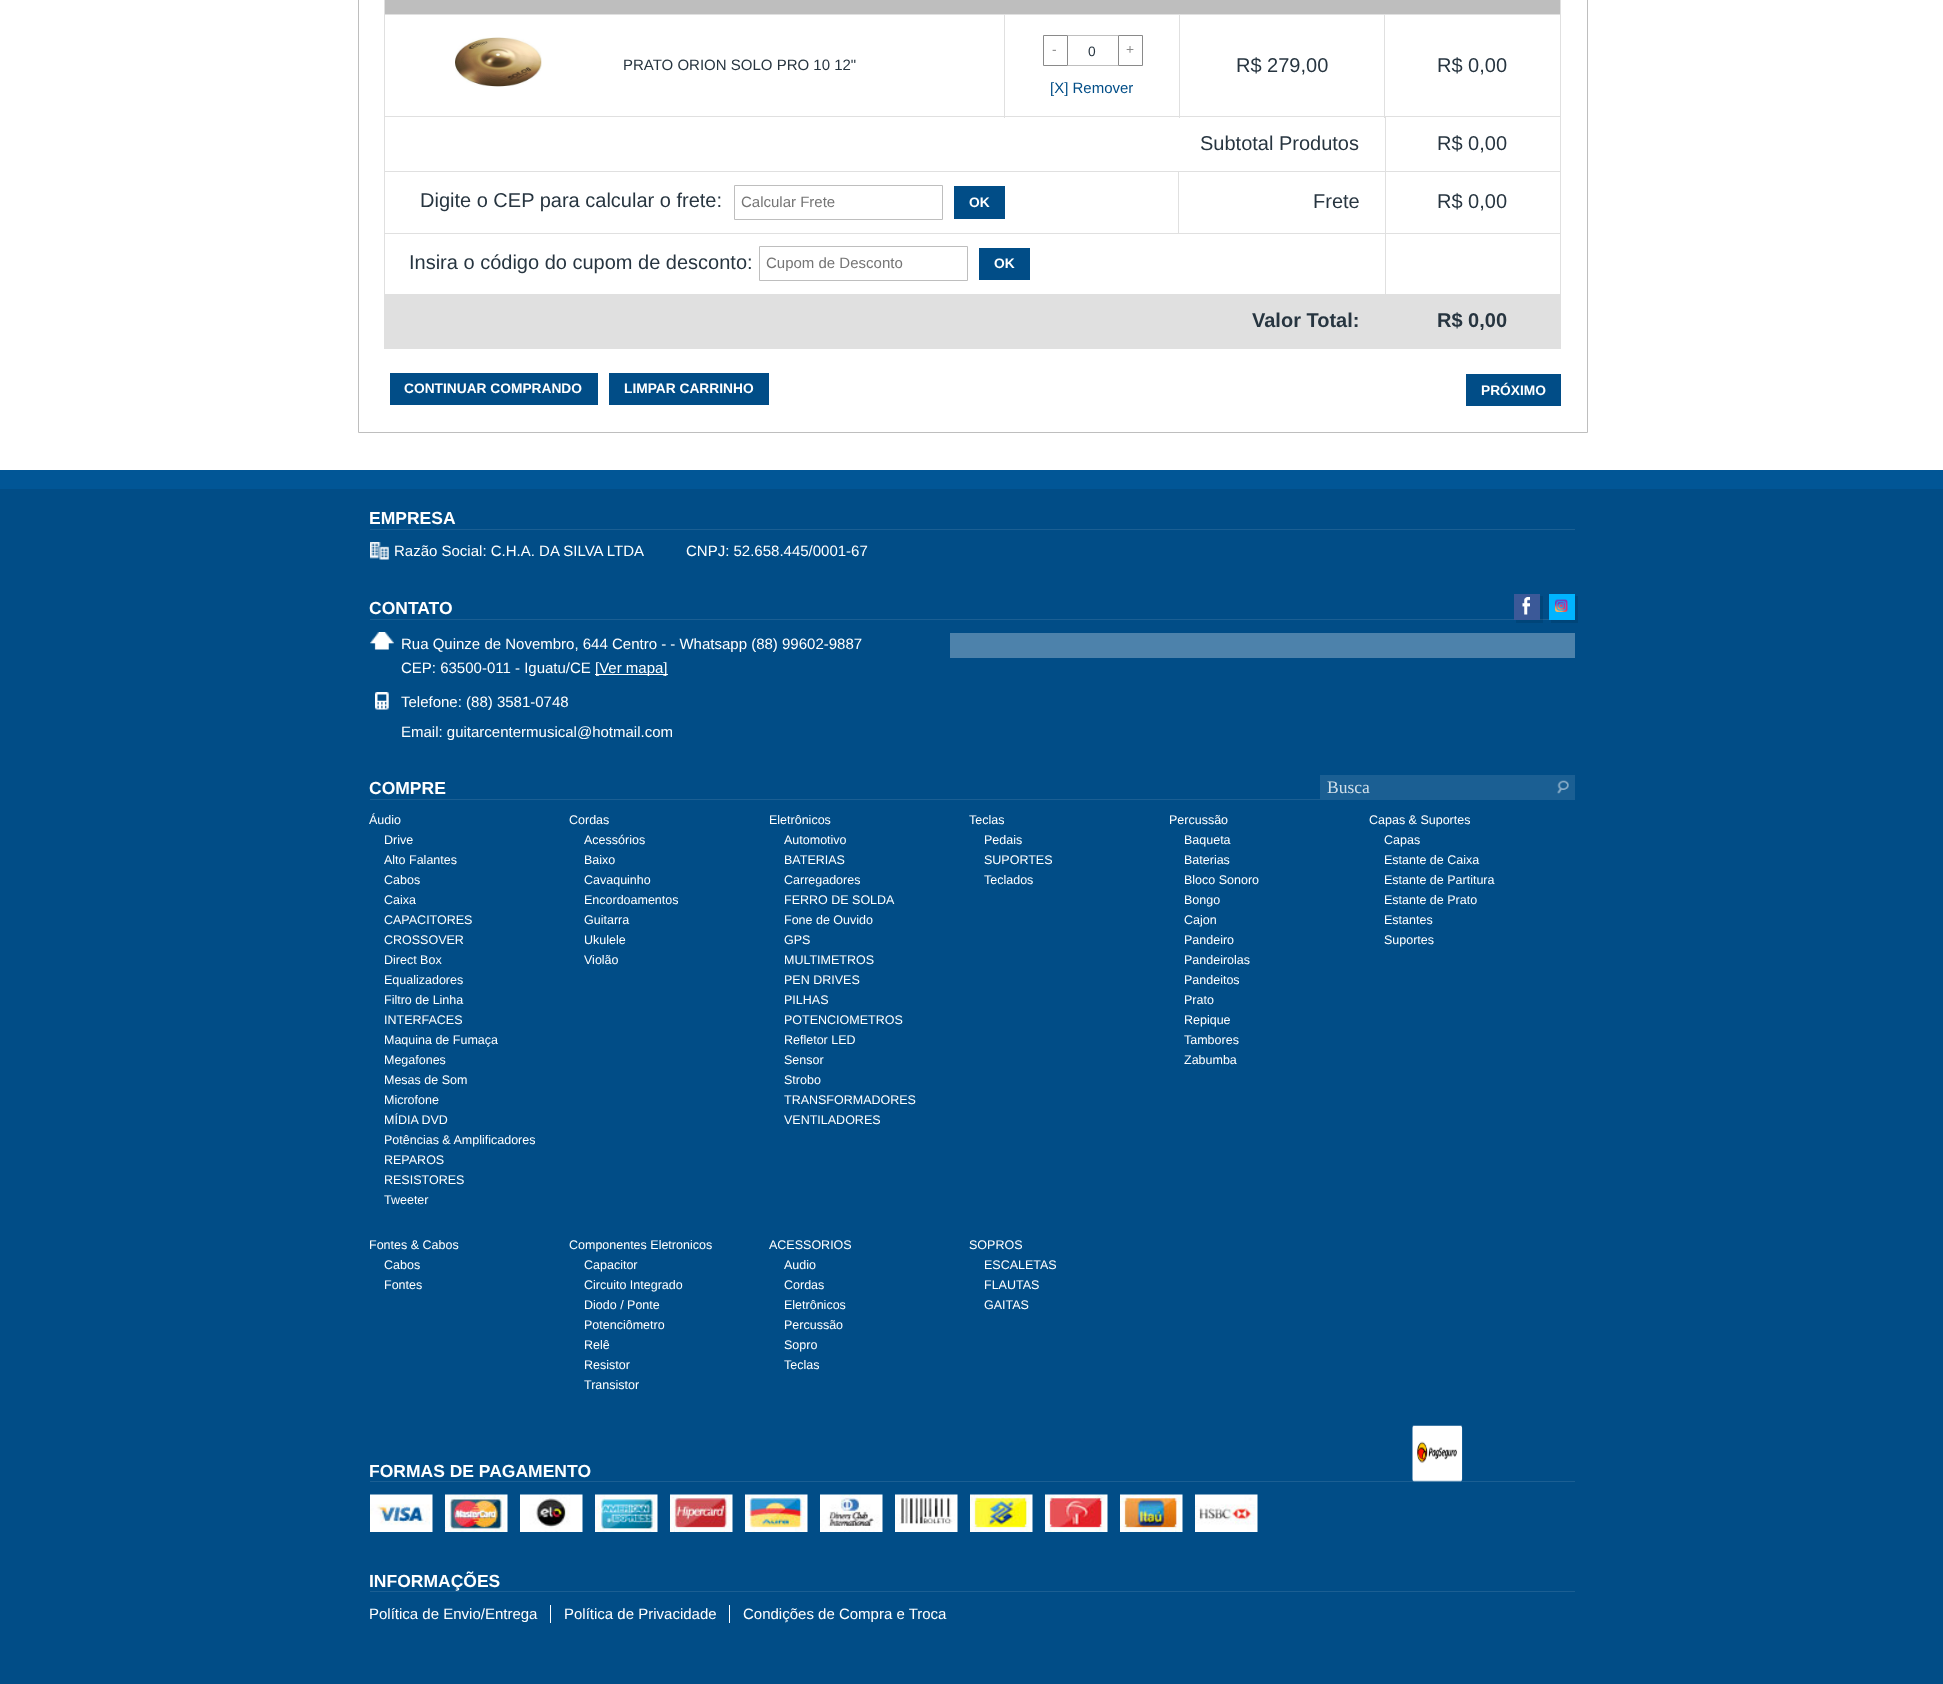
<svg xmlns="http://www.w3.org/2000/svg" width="1943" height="1684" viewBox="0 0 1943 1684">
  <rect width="100%" height="100%" fill="#fff"/>
  <path d="M358.5 -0.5h1229v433H358.5z" fill="none" stroke="#bebebe"/>
  <path d="M1560 0h1v349H1560z" fill="#e0e0e0"/>
  <path d="M384 348h1177v1H384z" fill="#e0e0e0"/>
  <path d="M1384 14h176v1H1384z" fill="#e0e0e0"/>
  <path d="M1384 14h1v104H1384z" fill="#e0e0e0"/>
  <path d="M1179 14h206v1H1179z" fill="#e0e0e0"/>
  <path d="M1179 14h1v104H1179z" fill="#e0e0e0"/>
  <path d="M1004 14h176v1H1004z" fill="#e0e0e0"/>
  <path d="M1004 14h1v104H1004z" fill="#e0e0e0"/>
  <path d="M384 14h621v1H384z" fill="#e0e0e0"/>
  <path d="M384 0h1v349H384z" fill="#e0e0e0"/>
  <path d="M385 0h1175v14H385z" fill="#bebebe"/>
  <image x="455" y="37" width="87" height="50" href="img/1.png"/>
  <path d="M1043.5 35.5h24v30H1043.5z" fill="none" stroke="#8a8a8a"/>
  <path d="M1068 35h50v1H1068z" fill="#bebebe"/>
  <path d="M1068 65h50v1H1068z" fill="#bebebe"/>
  <path d="M1118.5 35.5h24v30H1118.5z" fill="none" stroke="#8a8a8a"/>
  <path d="M1385 116h176v1H1385z" fill="#e0e0e0"/>
  <path d="M1385 171h176v1H1385z" fill="#e0e0e0"/>
  <path d="M1385 233h176v1H1385z" fill="#e0e0e0"/>
  <path d="M385 294h1175v54H385z" fill="#e0e0e0"/>
  <path d="M1385 233h1v62H1385z" fill="#e0e0e0"/>
  <path d="M384 233h1002v1H384z" fill="#e0e0e0"/>
  <path d="M1385 171h1v63H1385z" fill="#e0e0e0"/>
  <path d="M1178 171h208v1H1178z" fill="#e0e0e0"/>
  <path d="M1385 116h1v57H1385z" fill="#e0e0e0"/>
  <path d="M384 116h1002v1H384z" fill="#e0e0e0"/>
  <path d="M1178 171h1v63H1178z" fill="#e0e0e0"/>
  <path d="M384 171h795v1H384z" fill="#e0e0e0"/>
  <path d="M734.5 185.5h208v34H734.5z" fill="none" stroke="#bebebe"/>
  <path d="M954 186h51v33H954z" fill="#014d87"/>
  <path d="M759.5 246.5h208v34H759.5z" fill="none" stroke="#bebebe"/>
  <path d="M979 248h51v32H979z" fill="#014d87"/>
  <path d="M390 373h208v32H390z" fill="#014d87"/>
  <path d="M609 373h160v32H609z" fill="#014d87"/>
  <path d="M1466 374h95v32H1466z" fill="#014d87"/>
  <path d="M0 489h1943v1195H0z" fill="#014d87"/>
  <path d="M0 470h1943v19H0z" fill="#015696"/>
  <path d="M370 529h1205v1H370z" fill="#1b5f93"/>
  <image x="370" y="542" width="19" height="18" href="img/2.png"/>
  <path d="M370 619h1179v1H370z" fill="#1b5f93"/>
  <path d="M1516 596h27v27H1516z" fill="#0000001a" filter="blur(0.5px)"/>
  <path d="M1514 594h26v26H1514z" fill="#3b5998"/>
  <image x="1522" y="597" width="8" height="18" href="img/3.png"/>
  <path d="M1551 596h27v27H1551z" fill="#0000001a" filter="blur(0.5px)"/>
  <path d="M1549 594h26v26H1549z" fill="#00b4ff"/>
  <image x="1555" y="599" width="13" height="13" href="img/4.png"/>
  <image x="370" y="632" width="24" height="18" href="img/5.png"/>
  <path d="M595 674h73v1H595z" fill="#fff"/>
  <path d="M950 633h625v25H950z" fill="#4d82ab"/>
  <image x="375" y="692" width="14" height="18" href="img/6.png"/>
  <path d="M370 799h950v1H370z" fill="#1b5f93"/>
  <path d="M1320 775h255v25H1320z" fill="#1b5f93"/>
  <image x="1557" y="780" width="12" height="14" href="img/7.png"/>
  <path d="M370 1481h1205v1H370z" fill="#1b5f93"/>
  <image x="1412" y="1425" width="51" height="57" href="img/8.png"/>
  <image x="370" y="1494" width="63" height="38" href="img/9.png"/>
  <image x="445" y="1494" width="63" height="38" href="img/10.png"/>
  <image x="520" y="1494" width="63" height="38" href="img/11.png"/>
  <image x="595" y="1494" width="63" height="38" href="img/12.png"/>
  <image x="670" y="1494" width="63" height="38" href="img/13.png"/>
  <image x="745" y="1494" width="63" height="38" href="img/14.png"/>
  <image x="820" y="1494" width="63" height="38" href="img/15.png"/>
  <image x="895" y="1494" width="63" height="38" href="img/16.png"/>
  <image x="970" y="1494" width="63" height="38" href="img/17.png"/>
  <image x="1045" y="1494" width="63" height="38" href="img/18.png"/>
  <image x="1120" y="1494" width="63" height="38" href="img/19.png"/>
  <image x="1195" y="1494" width="63" height="38" href="img/20.png"/>
  <path d="M370 1591h1205v1H370z" fill="#1b5f93"/>
  <path d="M550 1605h1v18H550z" fill="#fff"/>
  <path d="M729 1605h1v18H729z" fill="#fff"/>
  <text x="623" y="70" font-family="Liberation Sans" font-size="15" fill="#273540">PRATO ORION SOLO PRO 10 12"</text>
  <text x="1052" y="54" font-family="Liberation Sans" font-size="13.75" fill="#8a8a8a">-</text>
  <text x="1088" y="56" font-family="Liberation Sans" font-size="13.75" fill="#273540">0</text>
  <text x="1126" y="54" font-family="Liberation Sans" font-size="13.75" fill="#8a8a8a">+</text>
  <text x="1050" y="93" font-family="Liberation Sans" font-size="15" fill="#014d87">[X] Remover</text>
  <g font-family="Liberation Sans" font-size="20" fill="#273540">
    <text x="1236" y="72">R$ 279,00</text>
    <text x="1437" y="72">R$ 0,00</text>
    <text x="1200" y="150">Subtotal Produtos</text>
    <text x="1437" y="150">R$ 0,00</text>
    <text x="420" y="207">Digite o CEP para calcular o frete:</text>
  </g>
  <text x="741" y="207" font-family="Liberation Sans" font-size="15" fill="#757575">Calcular Frete</text>
  <text x="969" y="207" font-family="Liberation Sans" font-size="13.75" font-weight="bold" fill="#fff">OK</text>
  <g font-family="Liberation Sans" font-size="20" fill="#273540">
    <text x="1313" y="208">Frete</text>
    <text x="1437" y="208">R$ 0,00</text>
    <text x="409" y="269">Insira o código do cupom de desconto:</text>
  </g>
  <text x="766" y="268" font-family="Liberation Sans" font-size="15" fill="#757575">Cupom de Desconto</text>
  <text x="994" y="268" font-family="Liberation Sans" font-size="13.75" font-weight="bold" fill="#fff">OK</text>
  <g font-family="Liberation Sans" font-size="20" font-weight="bold" fill="#273540">
    <text x="1252" y="327">Valor Total:</text>
    <text x="1437" y="327">R$ 0,00</text>
  </g>
  <g font-family="Liberation Sans" font-size="13.75" font-weight="bold" fill="#fff">
    <text x="404" y="393">CONTINUAR COMPRANDO</text>
    <text x="624" y="393">LIMPAR CARRINHO</text>
    <text x="1481" y="395">PRÓXIMO</text>
  </g>
  <text x="369" y="524" font-family="Liberation Sans" font-size="17.5" font-weight="bold" fill="#fff">EMPRESA</text>
  <g font-family="Liberation Sans" font-size="15" fill="#fff">
    <text x="394" y="556">Razão Social: C.H.A. DA SILVA LTDA</text>
    <text x="686" y="556">CNPJ: 52.658.445/0001-67</text>
  </g>
  <text x="369" y="614" font-family="Liberation Sans" font-size="17.5" font-weight="bold" fill="#fff">CONTATO</text>
  <g font-family="Liberation Sans" font-size="15" fill="#fff">
    <text x="401" y="649">Rua Quinze de Novembro, 644 Centro - - Whatsapp (88) 99602-9887</text>
    <text x="401" y="673">CEP: 63500-011 - Iguatu/CE</text>
    <text x="595" y="673">[Ver mapa]</text>
    <text x="401" y="707">Telefone: (88) 3581-0748</text>
    <text x="401" y="737">Email: guitarcentermusical@hotmail.com</text>
  </g>
  <text x="369" y="794" font-family="Liberation Sans" font-size="17.5" font-weight="bold" fill="#fff">COMPRE</text>
  <text x="1327" y="793" font-family="Liberation Serif" font-size="17.5" fill="#d1dfe9">Busca</text>
  <g font-family="Liberation Sans" font-size="12.5" fill="#fff">
    <text x="369" y="824">Áudio</text>
    <text x="384" y="844">Drive</text>
    <text x="384" y="864">Alto Falantes</text>
    <text x="384" y="884">Cabos</text>
    <text x="384" y="904">Caixa</text>
    <text x="384" y="924">CAPACITORES</text>
    <text x="384" y="944">CROSSOVER</text>
    <text x="384" y="964">Direct Box</text>
    <text x="384" y="984">Equalizadores</text>
    <text x="384" y="1004">Filtro de Linha</text>
    <text x="384" y="1024">INTERFACES</text>
    <text x="384" y="1044">Maquina de Fumaça</text>
    <text x="384" y="1064">Megafones</text>
    <text x="384" y="1084">Mesas de Som</text>
    <text x="384" y="1104">Microfone</text>
    <text x="384" y="1124">MÍDIA DVD</text>
    <text x="384" y="1144">Potências &amp; Amplificadores</text>
    <text x="384" y="1164">REPAROS</text>
    <text x="384" y="1184">RESISTORES</text>
    <text x="384" y="1204">Tweeter</text>
    <text x="569" y="824">Cordas</text>
    <text x="584" y="844">Acessórios</text>
    <text x="584" y="864">Baixo</text>
    <text x="584" y="884">Cavaquinho</text>
    <text x="584" y="904">Encordoamentos</text>
    <text x="584" y="924">Guitarra</text>
    <text x="584" y="944">Ukulele</text>
    <text x="584" y="964">Violão</text>
    <text x="769" y="824">Eletrônicos</text>
    <text x="784" y="844">Automotivo</text>
    <text x="784" y="864">BATERIAS</text>
    <text x="784" y="884">Carregadores</text>
    <text x="784" y="904">FERRO DE SOLDA</text>
    <text x="784" y="924">Fone de Ouvido</text>
    <text x="784" y="944">GPS</text>
    <text x="784" y="964">MULTIMETROS</text>
    <text x="784" y="984">PEN DRIVES</text>
    <text x="784" y="1004">PILHAS</text>
    <text x="784" y="1024">POTENCIOMETROS</text>
    <text x="784" y="1044">Refletor LED</text>
    <text x="784" y="1064">Sensor</text>
    <text x="784" y="1084">Strobo</text>
    <text x="784" y="1104">TRANSFORMADORES</text>
    <text x="784" y="1124">VENTILADORES</text>
    <text x="969" y="824">Teclas</text>
    <text x="984" y="844">Pedais</text>
    <text x="984" y="864">SUPORTES</text>
    <text x="984" y="884">Teclados</text>
    <text x="1169" y="824">Percussão</text>
    <text x="1184" y="844">Baqueta</text>
    <text x="1184" y="864">Baterias</text>
    <text x="1184" y="884">Bloco Sonoro</text>
    <text x="1184" y="904">Bongo</text>
    <text x="1184" y="924">Cajon</text>
    <text x="1184" y="944">Pandeiro</text>
    <text x="1184" y="964">Pandeirolas</text>
    <text x="1184" y="984">Pandeitos</text>
    <text x="1184" y="1004">Prato</text>
    <text x="1184" y="1024">Repique</text>
    <text x="1184" y="1044">Tambores</text>
    <text x="1184" y="1064">Zabumba</text>
    <text x="1369" y="824">Capas &amp; Suportes</text>
    <text x="1384" y="844">Capas</text>
    <text x="1384" y="864">Estante de Caixa</text>
    <text x="1384" y="884">Estante de Partitura</text>
    <text x="1384" y="904">Estante de Prato</text>
    <text x="1384" y="924">Estantes</text>
    <text x="1384" y="944">Suportes</text>
    <text x="369" y="1249">Fontes &amp; Cabos</text>
    <text x="384" y="1269">Cabos</text>
    <text x="384" y="1289">Fontes</text>
    <text x="569" y="1249">Componentes Eletronicos</text>
    <text x="584" y="1269">Capacitor</text>
    <text x="584" y="1289">Circuito Integrado</text>
    <text x="584" y="1309">Diodo / Ponte</text>
    <text x="584" y="1329">Potenciômetro</text>
    <text x="584" y="1349">Relê</text>
    <text x="584" y="1369">Resistor</text>
    <text x="584" y="1389">Transistor</text>
    <text x="769" y="1249">ACESSORIOS</text>
    <text x="784" y="1269">Audio</text>
    <text x="784" y="1289">Cordas</text>
    <text x="784" y="1309">Eletrônicos</text>
    <text x="784" y="1329">Percussão</text>
    <text x="784" y="1349">Sopro</text>
    <text x="784" y="1369">Teclas</text>
    <text x="969" y="1249">SOPROS</text>
    <text x="984" y="1269">ESCALETAS</text>
    <text x="984" y="1289">FLAUTAS</text>
    <text x="984" y="1309">GAITAS</text>
  </g>
  <g font-family="Liberation Sans" font-size="17.5" font-weight="bold" fill="#fff">
    <text x="369" y="1477">FORMAS DE PAGAMENTO</text>
    <text x="369" y="1587">INFORMAÇÕES</text>
  </g>
  <g font-family="Liberation Sans" font-size="15" fill="#fff">
    <text x="369" y="1619">Política de Envio/Entrega</text>
    <text x="564" y="1619">Política de Privacidade</text>
    <text x="743" y="1619">Condições de Compra e Troca</text>
  </g>
</svg>
